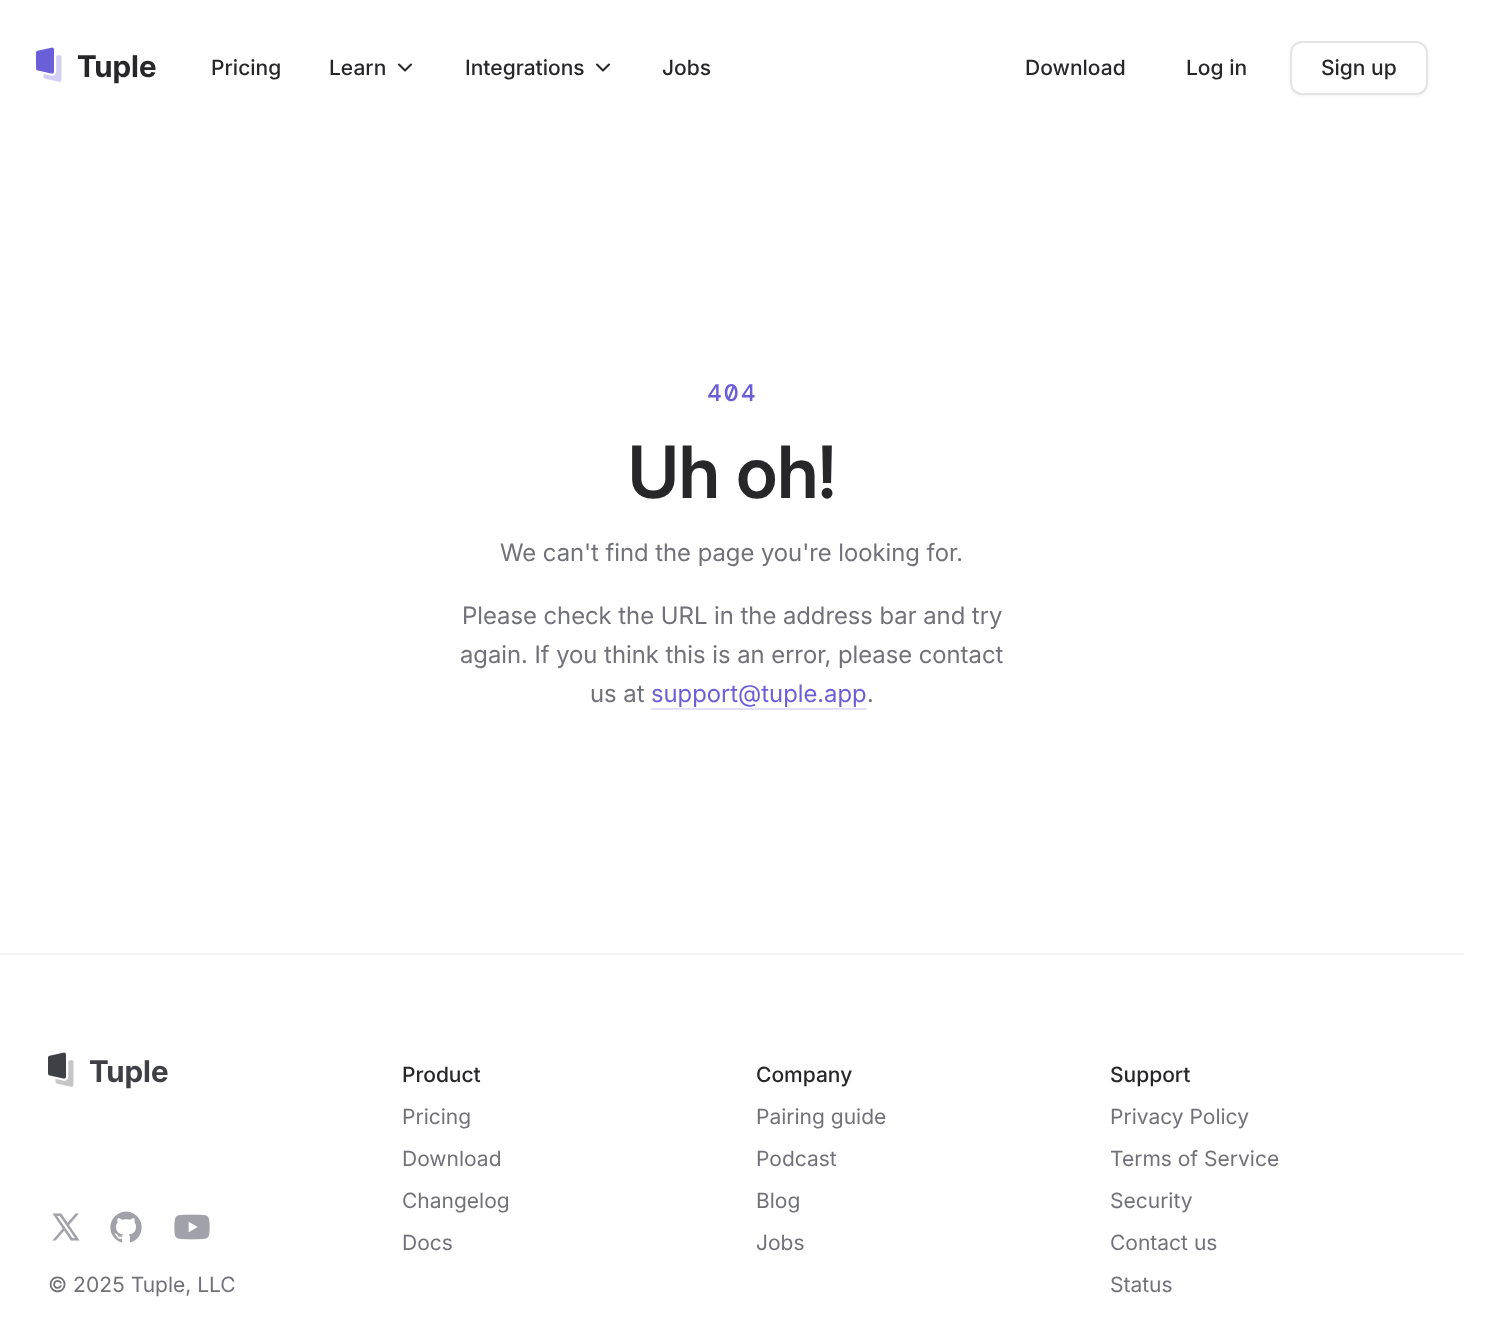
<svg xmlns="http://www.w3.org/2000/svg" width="1486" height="1324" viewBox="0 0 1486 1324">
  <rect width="100%" height="100%" fill="#fff"/>
  <image x="36" y="47" width="26" height="35" href="img/1.png"/>
  <path d="M399 64.5L405 70.5L411 64.5" fill="none" stroke="#27272a" stroke-width="2" stroke-linecap="round" stroke-linejoin="round"/>
  <path d="M597 64.5L603 70.5L609 64.5" fill="none" stroke="#27272a" stroke-width="2" stroke-linecap="round" stroke-linejoin="round"/>
  <rect x="1290" y="42" width="138" height="54" rx="12" fill="#0000000d" filter="blur(1.5px)"/>
  <rect x="1291" y="42" width="136" height="52" rx="11" fill="#fff" stroke="#e4e4e7" stroke-width="2"/>
  <path d="M651 708h216v2H651z" fill="#e1dff7"/>
  <path d="M0 953h1464v2H0z" fill="#f4f4f5"/>
  <image x="48" y="1052" width="26" height="35" href="img/2.png"/>
  <image x="52" y="1213" width="28" height="28" href="img/3.png"/>
  <image x="110" y="1211" width="32" height="32" href="img/4.png"/>
  <image x="174" y="1214" width="36" height="26" href="img/5.png"/>
  <text x="77" y="77" font-family="Inter" font-size="30" font-weight="bold" fill="#27272a">Tuple</text>
  <g font-family="Inter" font-size="21" font-weight="500" fill="#27272a">
    <text x="211" y="75">Pricing</text>
    <text x="329" y="75">Learn</text>
    <text x="465" y="75">Integrations</text>
    <text x="662" y="75">Jobs</text>
    <text x="1025" y="75">Download</text>
    <text x="1186" y="75">Log in</text>
    <text x="1321" y="75">Sign up</text>
  </g>
  <text x="707" y="401" font-family="DM Mono" font-size="24" font-weight="500" letter-spacing="2.5" fill="#6a5ed9">404</text>
  <text x="628" y="498" font-family="Inter" font-size="72" font-weight="600" fill="#27272a">Uh oh!</text>
  <g font-family="'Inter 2'" font-size="24" fill="#71717a">
    <text x="500" y="561">We can't find the page you're looking for.</text>
    <text x="462" y="624">Please check the URL in the address bar and try</text>
    <text x="460" y="663">again. If you think this is an error, please contact</text>
    <text x="590" y="702">us at</text>
  </g>
  <text x="651" y="702" font-family="'Inter 2'" font-size="24" fill="#6a5ed9">support@tuple.app</text>
  <text x="867" y="702" font-family="'Inter 2'" font-size="24" fill="#71717a">.</text>
  <text x="89" y="1082" font-family="Inter" font-size="30" font-weight="bold" fill="#3f3f46">Tuple</text>
  <text x="48" y="1292" font-family="Inter" font-size="21" fill="#71717a">© 2025 Tuple, LLC</text>
  <text x="402" y="1082" font-family="Inter" font-size="21" font-weight="500" fill="#27272a">Product</text>
  <g font-family="Inter" font-size="21" fill="#71717a">
    <text x="402" y="1124">Pricing</text>
    <text x="402" y="1166">Download</text>
    <text x="402" y="1208">Changelog</text>
    <text x="402" y="1250">Docs</text>
  </g>
  <text x="756" y="1082" font-family="Inter" font-size="21" font-weight="500" fill="#27272a">Company</text>
  <g font-family="Inter" font-size="21" fill="#71717a">
    <text x="756" y="1124">Pairing guide</text>
    <text x="756" y="1166">Podcast</text>
    <text x="756" y="1208">Blog</text>
    <text x="756" y="1250">Jobs</text>
  </g>
  <text x="1110" y="1082" font-family="Inter" font-size="21" font-weight="500" fill="#27272a">Support</text>
  <g font-family="Inter" font-size="21" fill="#71717a">
    <text x="1110" y="1124">Privacy Policy</text>
    <text x="1110" y="1166">Terms of Service</text>
    <text x="1110" y="1208">Security</text>
    <text x="1110" y="1250">Contact us</text>
    <text x="1110" y="1292">Status</text>
  </g>
</svg>
